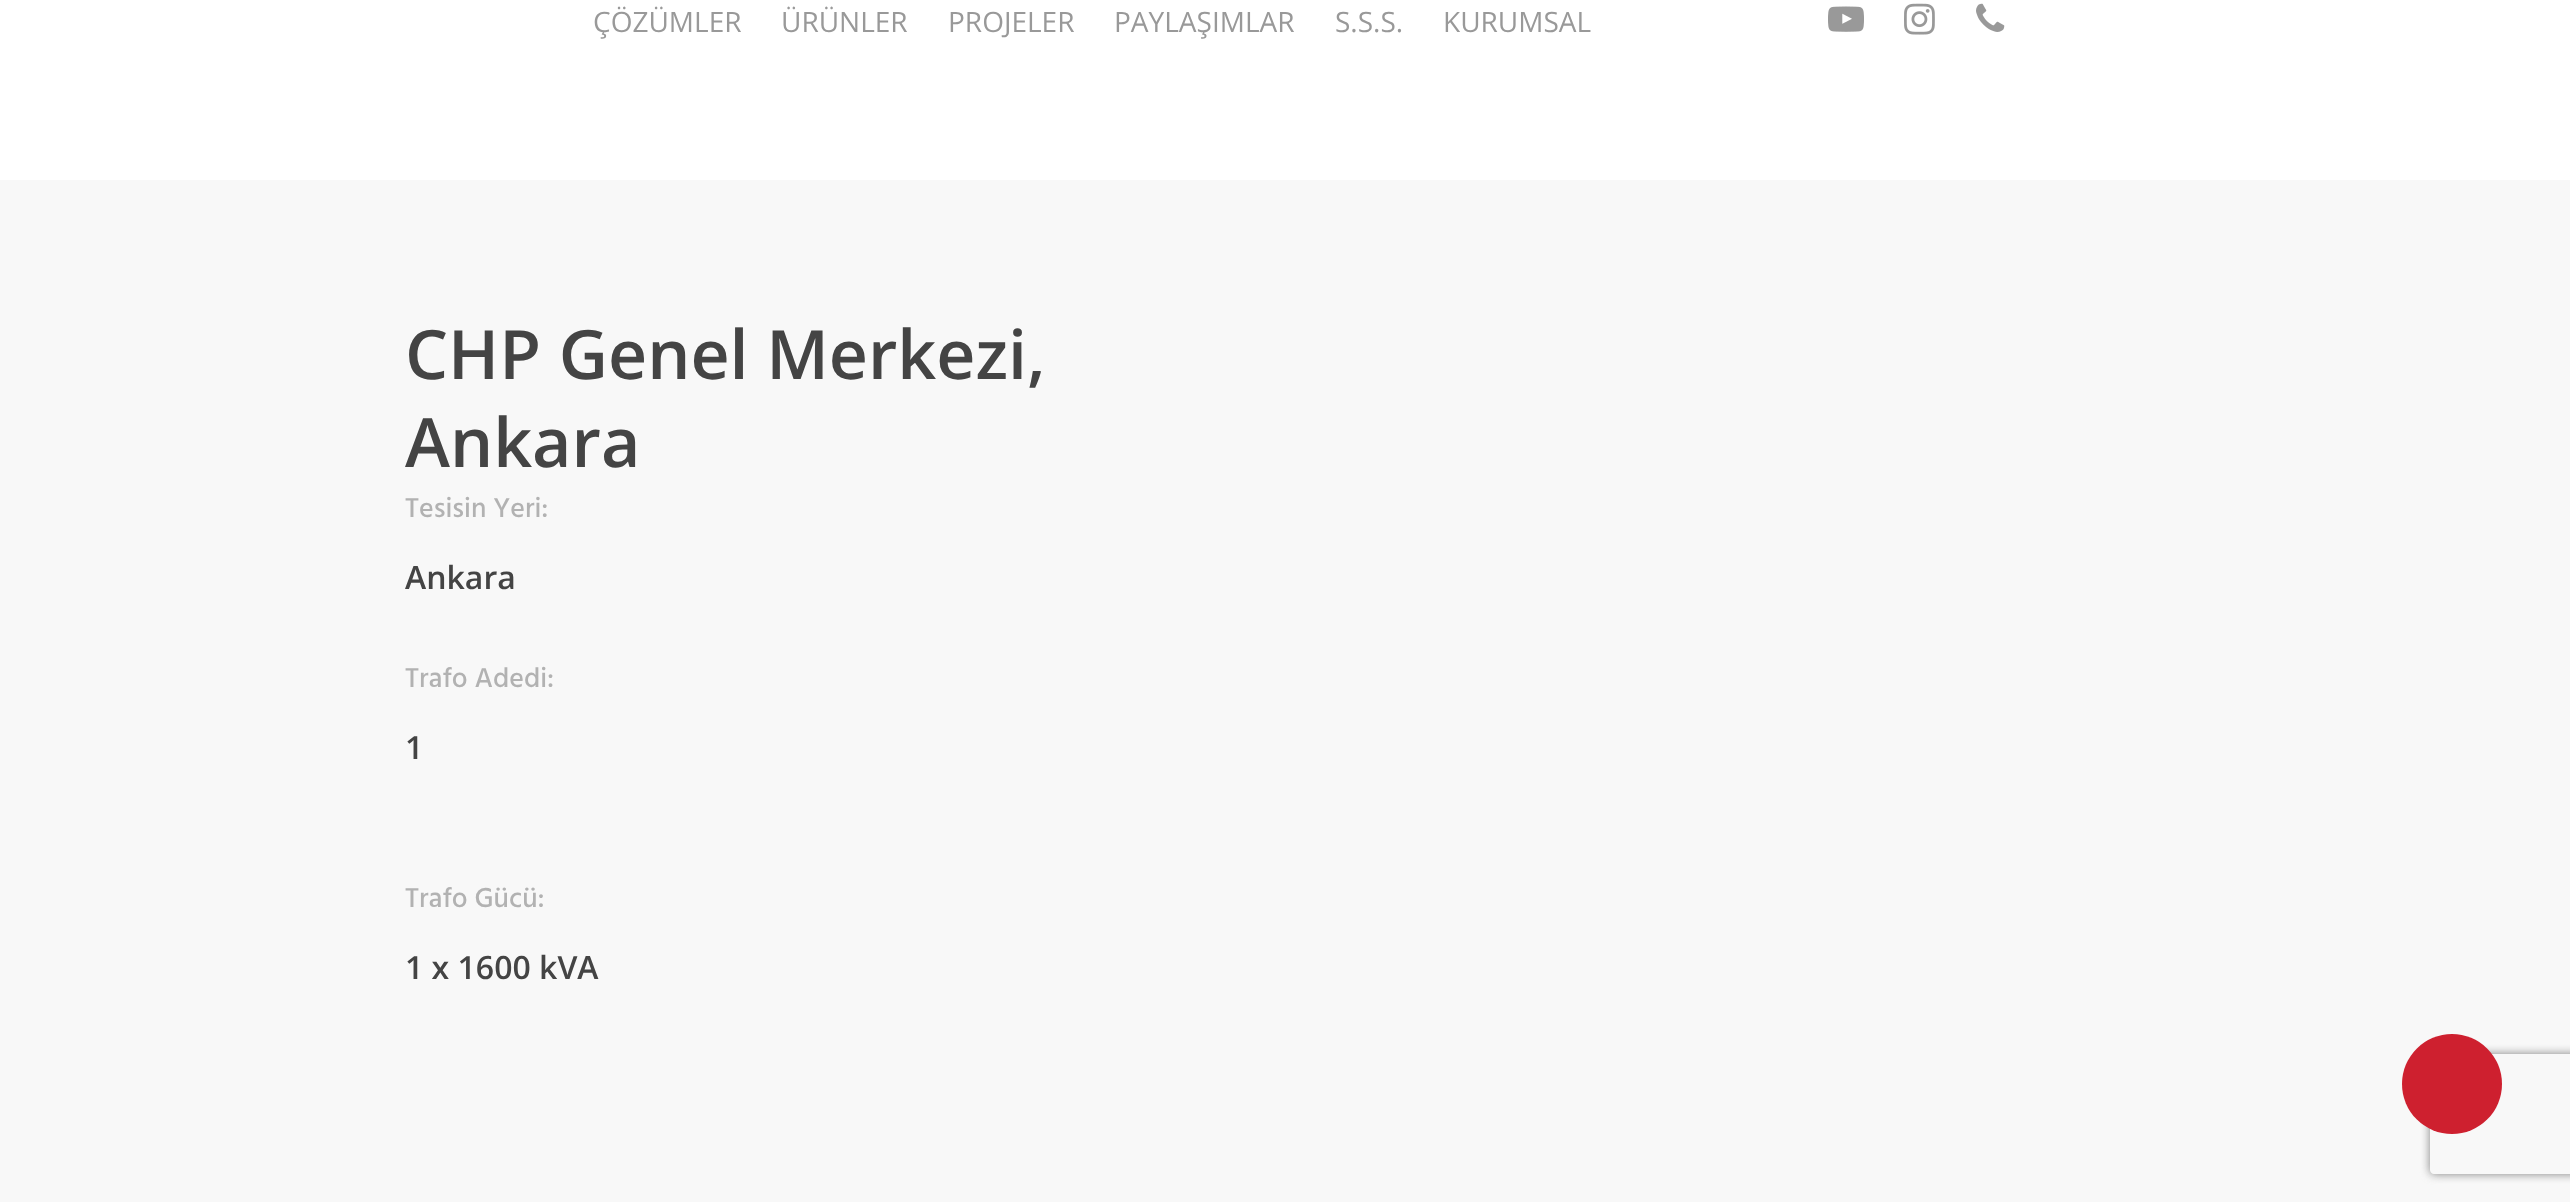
<svg xmlns="http://www.w3.org/2000/svg" width="2570" height="1202" viewBox="0 0 2570 1202">
  <defs>
    <clipPath id="clip1"><path d="M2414 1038H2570V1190H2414ZM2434 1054H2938C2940 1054 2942 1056 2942 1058V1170C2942 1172 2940 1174 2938 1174H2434C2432 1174 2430 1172 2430 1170V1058C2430 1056 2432 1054 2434 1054Z" clip-rule="evenodd"/></clipPath>
  </defs>
  <rect width="100%" height="100%" fill="#fff"/>
  <image x="1828" y="6" width="36" height="26" href="img/1.png"/>
  <image x="1904" y="3" width="31" height="32" href="img/2.png"/>
  <image x="1976" y="3" width="29" height="29" href="img/3.png"/>
  <path d="M0 180h2570v1022H0z" fill="#f8f8f8"/>
  <g clip-path="url(#clip1)">
    <rect x="2430" y="1054" width="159" height="120" rx="4" fill="#808080" filter="blur(5px)"/>
  </g>
  <circle cx="2452" cy="1084" r="50" fill="#ce202f"/>
  <g font-family="Open Sans" font-size="28" fill="#999">
    <text x="593" y="32">ÇÖZÜMLER</text>
    <text x="781" y="32">ÜRÜNLER</text>
    <text x="948" y="32">PROJELER</text>
    <text x="1114" y="32">PAYLAŞIMLAR</text>
    <text x="1335" y="32">S.S.S.</text>
    <text x="1443" y="32">KURUMSAL</text>
  </g>
  <g font-family="Open Sans" font-size="68" font-weight="600" fill="#444">
    <text x="405" y="379">CHP Genel Merkezi,</text>
    <text x="405" y="467">Ankara</text>
  </g>
  <text x="405" y="517" font-family="Hind" font-size="28" font-weight="500" fill="#b2b2b2">Tesisin Yeri:</text>
  <text x="405" y="589" font-family="Open Sans" font-size="32" font-weight="600" fill="#444">Ankara</text>
  <text x="405" y="687" font-family="Hind" font-size="28" font-weight="500" fill="#b2b2b2">Trafo Adedi:</text>
  <text x="405" y="759" font-family="Open Sans" font-size="32" font-weight="600" fill="#444">1</text>
  <text x="405" y="907" font-family="Hind" font-size="28" font-weight="500" fill="#b2b2b2">Trafo Gücü:</text>
  <text x="405" y="979" font-family="Open Sans" font-size="32" font-weight="600" fill="#444">1 x 1600 kVA</text>
</svg>
